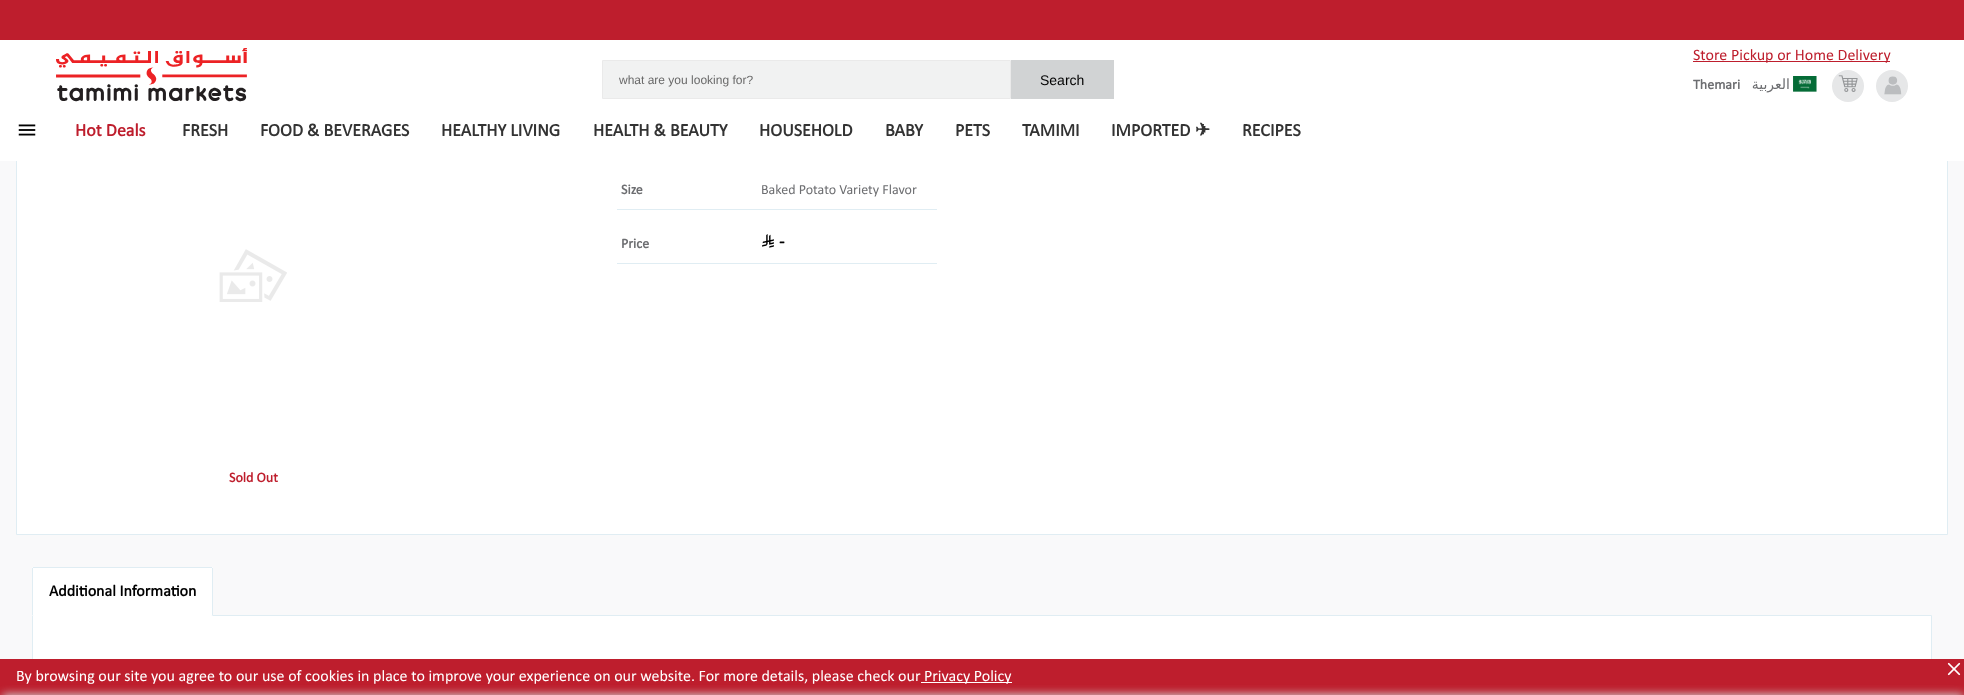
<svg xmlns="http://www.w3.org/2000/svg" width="1964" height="695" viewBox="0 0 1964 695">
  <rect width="100%" height="100%" fill="#f9f9fa"/>
  <path d="M17 161h1930v373H17z" fill="#fff"/>
  <path d="M16.5 7.5h1931v527H16.5z" fill="none" stroke="#e0edf3"/>
  <path d="M0 0h1964v40H0z" fill="#be1e2d"/>
  <path d="M0 40h1964v121H0z" fill="#fff"/>
  <image x="56" y="48" width="192" height="54" href="img/1.png"/>
  <path d="M602.5 60.5h408v38H602.5z" fill="#f1f2f2" stroke="#eaeaea"/>
  <path d="M1011 60h103v39H1011z" fill="#d1d3d4"/>
  <path d="M1693 61h197v1H1693z" fill="#be1e2d"/>
  <image x="1793" y="76" width="24" height="16" href="img/2.png"/>
  <circle cx="1848" cy="86" r="16" fill="#e6e7e8"/>
  <image x="1838" y="75" width="20" height="17" href="img/3.png"/>
  <circle cx="1892" cy="86" r="16" fill="#e6e7e8"/>
  <image x="1884" y="76" width="18" height="19" href="img/4.png"/>
  <image x="18" y="124" width="18" height="12" href="img/5.png"/>
  <path d="M617 209h320v1H617z" fill="#e0edf3"/>
  <path d="M617 263h320v1H617z" fill="#e0edf3"/>
  <image x="762" y="234" width="12" height="14" href="img/6.png"/>
  <image x="219" y="249" width="68" height="53" href="img/7.png"/>
  <path d="M33 616h1898v43H33z" fill="#fff"/>
  <path d="M32.5 615.5h1899v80H32.5z" fill="none" stroke="#e0edf3"/>
  <rect x="32" y="567" width="181" height="49" rx="2" fill="#fff"/>
  <path d="M33 567h179v1H33z" fill="#e0edf3"/>
  <path d="M212 568h1v47H212z" fill="#e0edf3"/>
  <path d="M32 568h1v47H32z" fill="#e0edf3"/>
  <path d="M0 659h1964v36H0z" fill="#be1e2d"/>
  <path d="M921 682h91v1H921z" fill="#fff"/>
  <image x="1947" y="662" width="14" height="14" href="img/8.png"/>
  <path d="M3 694h1960v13H3z" fill="#ccc" filter="blur(4px)"/>
  <text x="619" y="84" font-family="Liberation Sans" font-size="12" fill="#696969">what are you looking for?</text>
  <text x="1040" y="85" font-family="Liberation Sans" font-size="14" fill="#000">Search</text>
  <text x="1693" y="60" font-family="Calibri" font-size="16" fill="#be1e2d">Store Pickup or Home Delivery</text>
  <text x="1693" y="89" font-family="Calibri" font-size="14" font-weight="bold" fill="#6d6e71">Themari</text>
  <text x="1790" y="89" font-family="DejaVu Sans" font-size="14" direction="rtl" fill="#6d6e71">العربية</text>
  <text x="75" y="136" font-family="Calibri" font-size="18" font-weight="bold" fill="#be1e2d">Hot Deals</text>
  <g font-family="Calibri" font-size="18" font-weight="bold" fill="#333">
    <text x="182" y="136">FRESH</text>
    <text x="260" y="136">FOOD &amp; BEVERAGES</text>
    <text x="441" y="136">HEALTHY LIVING</text>
    <text x="593" y="136">HEALTH &amp; BEAUTY</text>
    <text x="759" y="136">HOUSEHOLD</text>
    <text x="885" y="136">BABY</text>
    <text x="955" y="136">PETS</text>
    <text x="1022" y="136">TAMIMI</text>
    <text x="1111" y="136">IMPORTED</text>
  </g>
  <text x="1195" y="136" font-family="DejaVu Sans" font-size="18" font-weight="bold" fill="#333">✈</text>
  <text x="1242" y="136" font-family="Calibri" font-size="18" font-weight="bold" fill="#333">RECIPES</text>
  <text x="621" y="194" font-family="Calibri" font-size="14" font-weight="bold" fill="#6d6e71">Size</text>
  <text x="761" y="194" font-family="Calibri" font-size="14" fill="#6d6e71">Baked Potato Variety Flavor</text>
  <text x="621" y="248" font-family="Calibri" font-size="14" font-weight="bold" fill="#6d6e71">Price</text>
  <text x="779" y="247" font-family="Calibri" font-size="18" font-weight="bold" fill="#000">-</text>
  <text x="229" y="482" font-family="Calibri" font-size="14" font-weight="bold" fill="#be1e2d">Sold Out</text>
  <text x="49" y="596" font-family="Calibri" font-size="16" font-weight="bold" fill="#000">Additional Information</text>
  <g font-family="Calibri" font-size="16" fill="#fff">
    <text x="16" y="681">By browsing our site you agree to our use of cookies in place to improve your experience on our website. For more details, please check our</text>
    <text x="924" y="681">Privacy Policy</text>
  </g>
</svg>
